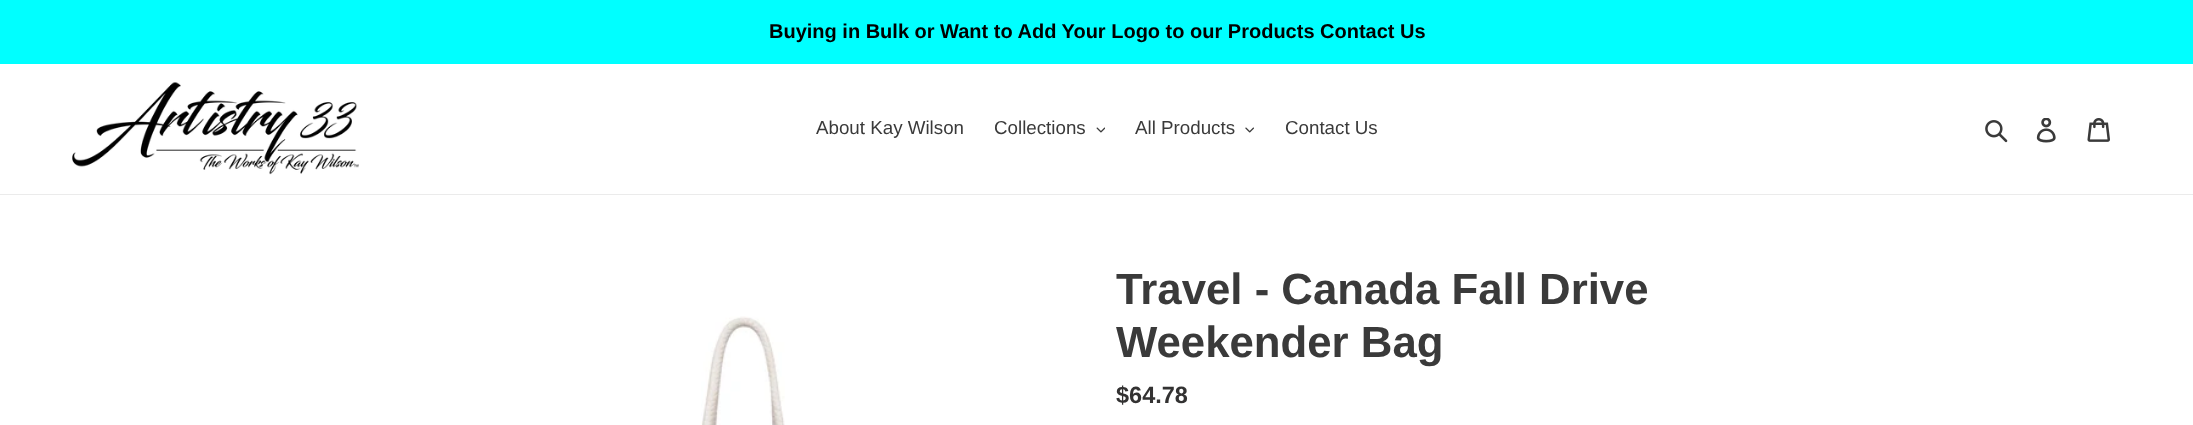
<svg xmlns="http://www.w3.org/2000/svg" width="2193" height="425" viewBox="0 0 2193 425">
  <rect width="100%" height="100%" fill="#fff"/>
  <path d="M0 0h2193v64H0z" fill="#0ff"/>
  <path d="M0 194h2193v1H0z" fill="#ebebeb"/>
  <image x="72" y="82" width="287" height="93" href="img/1.png"/>
  <image x="1096" y="127" width="9" height="6" href="img/2.png"/>
  <image x="1245" y="127" width="9" height="6" href="img/3.png"/>
  <image x="1985" y="120" width="23" height="23" href="img/4.png"/>
  <image x="2036" y="118" width="20" height="25" href="img/5.png"/>
  <image x="2087" y="118" width="23" height="24" href="img/6.png"/>
  <image x="701" y="316" width="84" height="109" href="img/7.png"/>
  <text x="769" y="38" font-family="Liberation Sans" font-size="20" font-weight="bold" fill="#000">Buying in Bulk or Want to Add Your Logo to our Products Contact Us</text>
  <g font-family="Liberation Sans" font-size="18.75" fill="#3a3a3a">
    <text x="816" y="134">About Kay Wilson</text>
    <text x="994" y="134">Collections</text>
    <text x="1135" y="134">All Products</text>
    <text x="1285" y="134">Contact Us</text>
  </g>
  <g font-family="Liberation Sans" font-size="43.75" font-weight="bold" fill="#3a3a3a">
    <text x="1116" y="304">Travel - Canada Fall Drive</text>
    <text x="1116" y="357">Weekender Bag</text>
  </g>
  <text x="1116" y="403" font-family="Liberation Sans" font-size="23.5" font-weight="bold" fill="#333232">$64.78</text>
</svg>
